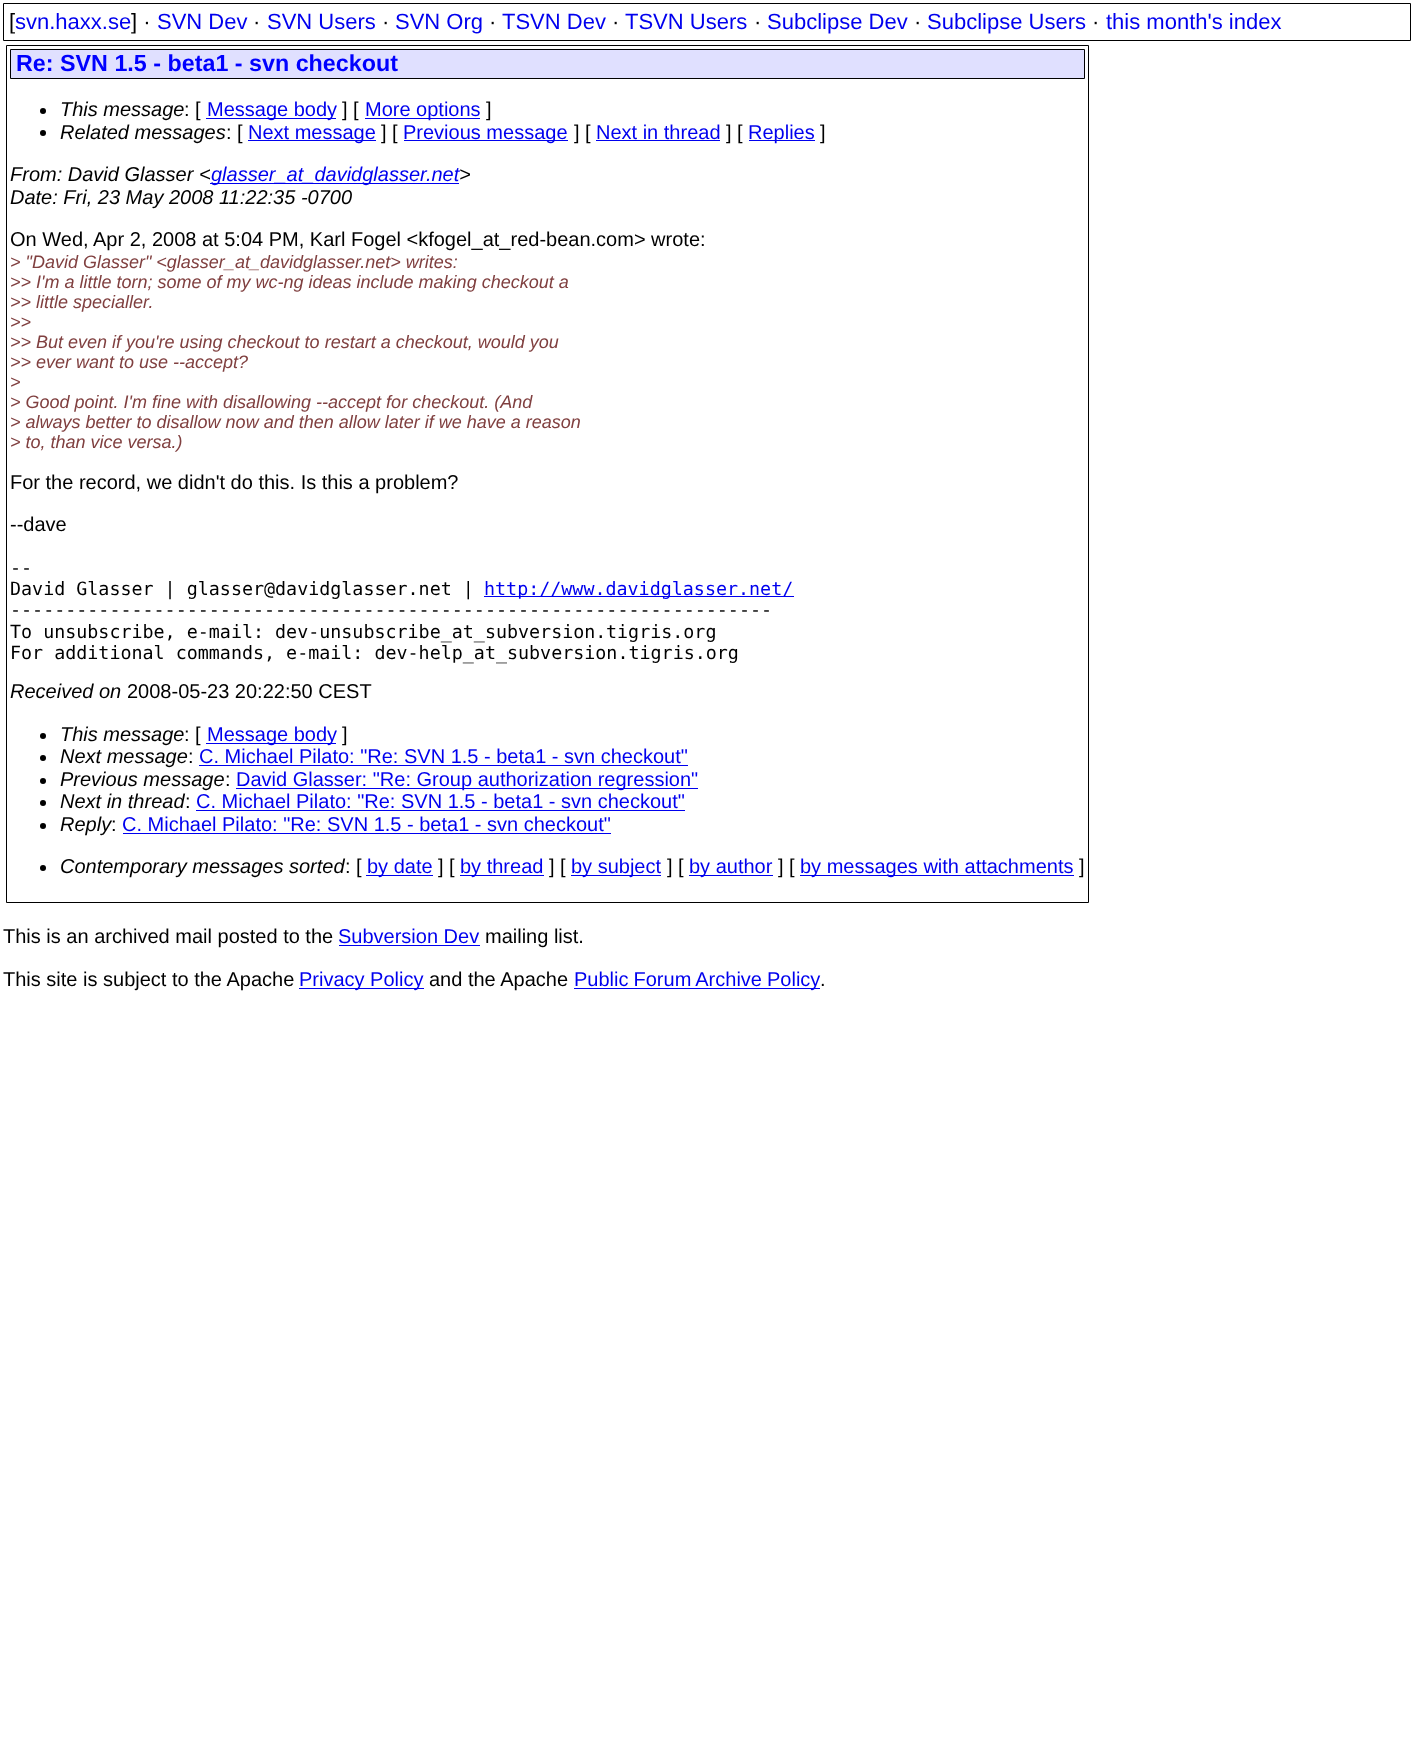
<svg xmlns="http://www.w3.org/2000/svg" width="1413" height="1752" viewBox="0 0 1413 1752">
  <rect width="100%" height="100%" fill="#fff"/>
  <path d="M3.5 3.5h1407v37H3.5z" fill="none" stroke="#000"/>
  <path d="M6.5 45.5h1082v857H6.5z" fill="none" stroke="#000"/>
  <path d="M10.5 49.5h1074v29H10.5z" fill="#e0e0ff" stroke="#000"/>
  <circle cx="43" cy="111" r="3" fill="#000"/>
  <path d="M206 118h130v1H206z" fill="#00e"/>
  <path d="M365 118h115v1H365z" fill="#00e"/>
  <circle cx="43" cy="133" r="3" fill="#000"/>
  <path d="M248 140h128v1H248z" fill="#00e"/>
  <path d="M404 140h164v1H404z" fill="#00e"/>
  <path d="M596 140h124v1H596z" fill="#00e"/>
  <path d="M749 140h66v1H749z" fill="#00e"/>
  <path d="M210 183h249v1H210z" fill="#00e"/>
  <path d="M484 596h310v1H484z" fill="#00e"/>
  <circle cx="43" cy="736" r="3" fill="#000"/>
  <path d="M206 743h130v1H206z" fill="#00e"/>
  <circle cx="43" cy="758" r="3" fill="#000"/>
  <path d="M199 765h489v1H199z" fill="#00e"/>
  <circle cx="43" cy="781" r="3" fill="#000"/>
  <path d="M236 788h462v1H236z" fill="#00e"/>
  <circle cx="43" cy="803" r="3" fill="#000"/>
  <path d="M196 810h489v1H196z" fill="#00e"/>
  <circle cx="43" cy="826" r="3" fill="#000"/>
  <path d="M123 833h488v1H123z" fill="#00e"/>
  <circle cx="43" cy="868" r="3" fill="#000"/>
  <path d="M366 875h67v1H366z" fill="#00e"/>
  <path d="M460 875h84v1H460z" fill="#00e"/>
  <path d="M571 875h90v1H571z" fill="#00e"/>
  <path d="M689 875h84v1H689z" fill="#00e"/>
  <path d="M800 875h274v1H800z" fill="#00e"/>
  <path d="M339 945h141v1H339z" fill="#00e"/>
  <path d="M299 988h125v1H299z" fill="#00e"/>
  <path d="M574 988h246v1H574z" fill="#00e"/>
  <text x="9" y="29" font-family="Liberation Sans" font-size="22" fill="#000">[</text>
  <text x="15" y="29" font-family="Liberation Sans" font-size="22" fill="#00e">svn.haxx.se</text>
  <text x="131" y="29" font-family="Liberation Sans" font-size="22" fill="#000">] ·</text>
  <text x="157" y="29" font-family="Liberation Sans" font-size="22" fill="#00e">SVN Dev</text>
  <text x="253" y="29" font-family="Liberation Sans" font-size="22" fill="#000">·</text>
  <text x="267" y="29" font-family="Liberation Sans" font-size="22" fill="#00e">SVN Users</text>
  <text x="382" y="29" font-family="Liberation Sans" font-size="22" fill="#000">·</text>
  <text x="395" y="29" font-family="Liberation Sans" font-size="22" fill="#00e">SVN Org</text>
  <text x="489" y="29" font-family="Liberation Sans" font-size="22" fill="#000">·</text>
  <text x="502" y="29" font-family="Liberation Sans" font-size="22" fill="#00e">TSVN Dev</text>
  <text x="612" y="29" font-family="Liberation Sans" font-size="22" fill="#000">·</text>
  <text x="625" y="29" font-family="Liberation Sans" font-size="22" fill="#00e">TSVN Users</text>
  <text x="754" y="29" font-family="Liberation Sans" font-size="22" fill="#000">·</text>
  <text x="767" y="29" font-family="Liberation Sans" font-size="22" fill="#00e">Subclipse Dev</text>
  <text x="914" y="29" font-family="Liberation Sans" font-size="22" fill="#000">·</text>
  <text x="927" y="29" font-family="Liberation Sans" font-size="22" fill="#00e">Subclipse Users</text>
  <text x="1092" y="29" font-family="Liberation Sans" font-size="22" fill="#000">·</text>
  <text x="1106" y="29" font-family="Liberation Sans" font-size="22" fill="#00e">this month's index</text>
  <text x="16" y="71" font-family="Liberation Sans" font-size="23.3" font-weight="bold" fill="#00f">Re: SVN 1.5 - beta1 - svn checkout</text>
  <text x="60" y="116" font-family="Liberation Sans" font-size="20" font-style="italic" fill="#000">This message</text>
  <text x="184" y="116" font-family="Liberation Sans" font-size="20" fill="#000">: [</text>
  <text x="207" y="116" font-family="Liberation Sans" font-size="20" fill="#00e">Message body</text>
  <text x="342" y="116" font-family="Liberation Sans" font-size="20" fill="#000">] [</text>
  <text x="365" y="116" font-family="Liberation Sans" font-size="20" fill="#00e">More options</text>
  <text x="486" y="116" font-family="Liberation Sans" font-size="20" fill="#000">]</text>
  <text x="60" y="139" font-family="Liberation Sans" font-size="20" font-style="italic" fill="#000">Related messages</text>
  <text x="226" y="139" font-family="Liberation Sans" font-size="20" fill="#000">: [</text>
  <text x="248" y="139" font-family="Liberation Sans" font-size="20" fill="#00e">Next message</text>
  <text x="381" y="139" font-family="Liberation Sans" font-size="20" fill="#000">] [</text>
  <text x="403" y="139" font-family="Liberation Sans" font-size="20" fill="#00e">Previous message</text>
  <text x="574" y="139" font-family="Liberation Sans" font-size="20" fill="#000">] [</text>
  <text x="596" y="139" font-family="Liberation Sans" font-size="20" fill="#00e">Next in thread</text>
  <text x="726" y="139" font-family="Liberation Sans" font-size="20" fill="#000">] [</text>
  <text x="748" y="139" font-family="Liberation Sans" font-size="20" fill="#00e">Replies</text>
  <text x="820" y="139" font-family="Liberation Sans" font-size="20" fill="#000">]</text>
  <text x="10" y="181" font-family="Liberation Sans" font-size="20" font-style="italic" fill="#000">From: David Glasser &lt;</text>
  <text x="211" y="181" font-family="Liberation Sans" font-size="20" font-style="italic" fill="#00e">glasser_at_davidglasser.net</text>
  <g font-family="Liberation Sans" font-size="20" font-style="italic" fill="#000">
    <text x="459" y="181">&gt;</text>
    <text x="10" y="204">Date: Fri, 23 May 2008 11:22:35 -0700</text>
  </g>
  <text x="10" y="246" font-family="Liberation Sans" font-size="20" fill="#000">On Wed, Apr 2, 2008 at 5:04 PM, Karl Fogel &lt;kfogel_at_red-bean.com&gt; wrote:</text>
  <g font-family="Liberation Sans" font-size="18" font-style="italic" fill="#804040">
    <text x="10" y="268">&gt; "David Glasser" &lt;glasser_at_davidglasser.net&gt; writes:</text>
    <text x="10" y="288">&gt;&gt; I'm a little torn; some of my wc-ng ideas include making checkout a</text>
    <text x="10" y="308">&gt;&gt; little specialler.</text>
    <text x="10" y="328">&gt;&gt;</text>
    <text x="10" y="348">&gt;&gt; But even if you're using checkout to restart a checkout, would you</text>
    <text x="10" y="368">&gt;&gt; ever want to use --accept?</text>
    <text x="10" y="388">&gt;</text>
    <text x="10" y="408">&gt; Good point. I'm fine with disallowing --accept for checkout. (And</text>
    <text x="10" y="428">&gt; always better to disallow now and then allow later if we have a reason</text>
    <text x="10" y="448">&gt; to, than vice versa.)</text>
  </g>
  <g font-family="Liberation Sans" font-size="20" fill="#000">
    <text x="10" y="489">For the record, we didn't do this. Is this a problem?</text>
    <text x="10" y="531">--dave</text>
  </g>
  <g font-family="DejaVu Sans Mono" font-size="18.35" fill="#000">
    <text x="10" y="574">--</text>
    <text x="10" y="595">David Glasser | glasser@davidglasser.net |</text>
  </g>
  <text x="484" y="595" font-family="DejaVu Sans Mono" font-size="18.35" fill="#00e">http://www.davidglasser.net/</text>
  <g font-family="DejaVu Sans Mono" font-size="18.35" fill="#000">
    <text x="10" y="616">---------------------------------------------------------------------</text>
    <text x="10" y="638">To unsubscribe, e-mail: dev-unsubscribe_at_subversion.</text>
    <text x="606" y="638">tigris.org</text>
    <text x="10" y="659">For additional commands, e-mail: dev-help_at_subversion.tigris.org</text>
  </g>
  <text x="10" y="698" font-family="Liberation Sans" font-size="20" font-style="italic" fill="#000">Received on</text>
  <text x="127" y="698" font-family="Liberation Sans" font-size="20" fill="#000">2008-05-23 20:22:50 CEST</text>
  <text x="60" y="741" font-family="Liberation Sans" font-size="20" font-style="italic" fill="#000">This message</text>
  <text x="184" y="741" font-family="Liberation Sans" font-size="20" fill="#000">: [</text>
  <text x="207" y="741" font-family="Liberation Sans" font-size="20" fill="#00e">Message body</text>
  <text x="342" y="741" font-family="Liberation Sans" font-size="20" fill="#000">]</text>
  <text x="60" y="763" font-family="Liberation Sans" font-size="20" font-style="italic" fill="#000">Next message</text>
  <text x="188" y="763" font-family="Liberation Sans" font-size="20" fill="#000">:</text>
  <text x="199" y="763" font-family="Liberation Sans" font-size="20" fill="#00e">C. Michael Pilato: "Re: SVN 1.5 - beta1 - svn checkout"</text>
  <text x="60" y="786" font-family="Liberation Sans" font-size="20" font-style="italic" fill="#000">Previous message</text>
  <text x="225" y="786" font-family="Liberation Sans" font-size="20" fill="#000">:</text>
  <text x="236" y="786" font-family="Liberation Sans" font-size="20" fill="#00e">David Glasser: "Re: Group authorization regression"</text>
  <text x="60" y="808" font-family="Liberation Sans" font-size="20" font-style="italic" fill="#000">Next in thread</text>
  <text x="185" y="808" font-family="Liberation Sans" font-size="20" fill="#000">:</text>
  <text x="196" y="808" font-family="Liberation Sans" font-size="20" fill="#00e">C. Michael Pilato: "Re: SVN 1.5 - beta1 - svn checkout"</text>
  <text x="60" y="831" font-family="Liberation Sans" font-size="20" font-style="italic" fill="#000">Reply</text>
  <text x="111" y="831" font-family="Liberation Sans" font-size="20" fill="#000">:</text>
  <text x="122" y="831" font-family="Liberation Sans" font-size="20" fill="#00e">C. Michael Pilato: "Re: SVN 1.5 - beta1 - svn checkout"</text>
  <text x="60" y="873" font-family="Liberation Sans" font-size="20" font-style="italic" fill="#000">Contemporary messages sorted</text>
  <text x="345" y="873" font-family="Liberation Sans" font-size="20" fill="#000">: [</text>
  <text x="367" y="873" font-family="Liberation Sans" font-size="20" fill="#00e">by date</text>
  <text x="438" y="873" font-family="Liberation Sans" font-size="20" fill="#000">] [</text>
  <text x="460" y="873" font-family="Liberation Sans" font-size="20" fill="#00e">by thread</text>
  <text x="549" y="873" font-family="Liberation Sans" font-size="20" fill="#000">] [</text>
  <text x="571" y="873" font-family="Liberation Sans" font-size="20" fill="#00e">by subject</text>
  <text x="667" y="873" font-family="Liberation Sans" font-size="20" fill="#000">] [</text>
  <text x="689" y="873" font-family="Liberation Sans" font-size="20" fill="#00e">by author</text>
  <text x="778" y="873" font-family="Liberation Sans" font-size="20" fill="#000">] [</text>
  <text x="800" y="873" font-family="Liberation Sans" font-size="20" fill="#00e">by messages with attachments</text>
  <g font-family="Liberation Sans" font-size="20" fill="#000">
    <text x="1079" y="873">]</text>
    <text x="3" y="943">This is an archived mail posted to the</text>
  </g>
  <text x="338" y="943" font-family="Liberation Sans" font-size="20" fill="#00e">Subversion Dev</text>
  <g font-family="Liberation Sans" font-size="20" fill="#000">
    <text x="485" y="943">mailing list.</text>
    <text x="3" y="986">This site is subject to the Apache</text>
  </g>
  <text x="299" y="986" font-family="Liberation Sans" font-size="20" fill="#00e">Privacy Policy</text>
  <text x="429" y="986" font-family="Liberation Sans" font-size="20" fill="#000">and the Apache</text>
  <text x="574" y="986" word-spacing="-0.5" font-family="Liberation Sans" font-size="20" fill="#00e">Public Forum Archive Policy</text>
  <text x="820" y="986" font-family="Liberation Sans" font-size="20" fill="#000">.</text>
</svg>
